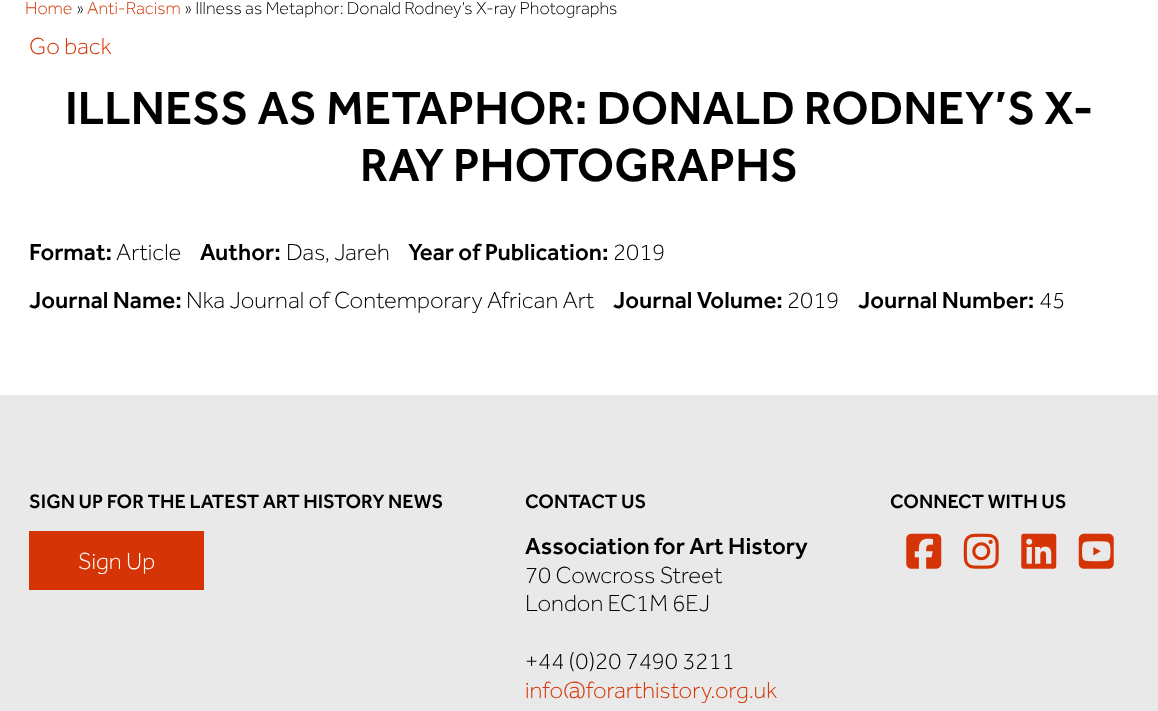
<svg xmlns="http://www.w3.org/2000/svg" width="1158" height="711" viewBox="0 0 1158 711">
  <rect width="100%" height="100%" fill="#fff"/>
  <path d="M0 395h1158v316H0z" fill="#e9e9e9"/>
  <path d="M29 531h175v59H29z" fill="#d53506"/>
  <image x="906" y="533" width="36" height="36" href="img/1.png"/>
  <image x="963" y="533" width="36" height="36" href="img/2.png"/>
  <image x="1021" y="533" width="36" height="36" href="img/3.png"/>
  <image x="1078" y="533" width="36" height="36" href="img/4.png"/>
  <text x="25" y="14" font-family="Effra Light" font-size="18" font-weight="300" fill="#d53506">Home</text>
  <text x="76" y="14" font-family="Effra Light" font-size="18" font-weight="300" fill="#000">»</text>
  <text x="87" y="14" font-family="Effra Light" font-size="18" font-weight="300" fill="#d53506">Anti-Racism</text>
  <text x="184" y="14" font-family="Effra Light" font-size="18" font-weight="300" fill="#000">» Illness as Metaphor: Donald Rodney’s X-ray Photographs</text>
  <text x="29" y="54" font-family="Effra Light" font-size="24" font-weight="300" fill="#d53506">Go back</text>
  <g font-family="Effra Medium" font-size="48" font-weight="500" fill="#000">
    <text x="65" y="124">ILLNESS AS METAPHOR: DONALD RODNEY’S X-</text>
    <text x="360" y="181">RAY PHOTOGRAPHS</text>
  </g>
  <text x="29" y="260" font-family="Effra Medium" font-size="24" font-weight="500" fill="#000">Format:</text>
  <text x="116" y="260" font-family="Effra Light" font-size="24" font-weight="300" fill="#000">Article</text>
  <text x="200" y="260" font-family="Effra Medium" font-size="24" font-weight="500" fill="#000">Author:</text>
  <text x="286" y="260" font-family="Effra Light" font-size="24" font-weight="300" fill="#000">Das, Jareh</text>
  <text x="408" y="260" font-family="Effra Medium" font-size="24" font-weight="500" fill="#000">Year of Publication:</text>
  <text x="613" y="260" font-family="Effra Light" font-size="24" font-weight="300" fill="#000">2019</text>
  <text x="29" y="308" font-family="Effra Medium" font-size="24" font-weight="500" fill="#000">Journal Name:</text>
  <text x="186" y="308" font-family="Effra Light" font-size="24" font-weight="300" fill="#000">Nka Journal of Contemporary African Art</text>
  <text x="613" y="308" font-family="Effra Medium" font-size="24" font-weight="500" fill="#000">Journal Volume:</text>
  <text x="787" y="308" font-family="Effra Light" font-size="24" font-weight="300" fill="#000">2019</text>
  <text x="858" y="308" font-family="Effra Medium" font-size="24" font-weight="500" fill="#000">Journal Number:</text>
  <text x="1039" y="308" font-family="Effra Light" font-size="24" font-weight="300" fill="#000">45</text>
  <text x="29" y="508" font-family="Effra Medium" font-size="20" font-weight="500" fill="#000">SIGN UP FOR THE LATEST ART HISTORY NEWS</text>
  <text x="78" y="569" font-family="Effra Light" font-size="24" font-weight="300" fill="#fff">Sign Up</text>
  <text x="525" y="508" font-family="Effra Medium" font-size="20" font-weight="500" fill="#000">CONTACT US</text>
  <text x="525" y="554" font-family="Effra Medium" font-size="24" font-weight="500" fill="#000">Association for Art History</text>
  <g font-family="Effra Light" font-size="24" font-weight="300" fill="#000">
    <text x="525" y="583">70 Cowcross Street</text>
    <text x="525" y="611">London EC1M 6EJ</text>
    <text x="525" y="669">+44 (0)20 7490 3211</text>
  </g>
  <text x="525" y="698" font-family="Effra Light" font-size="24" font-weight="300" fill="#d53506">info@forarthistory.org.uk</text>
  <text x="890" y="508" font-family="Effra Medium" font-size="20" font-weight="500" fill="#000">CONNECT WITH US</text>
</svg>
